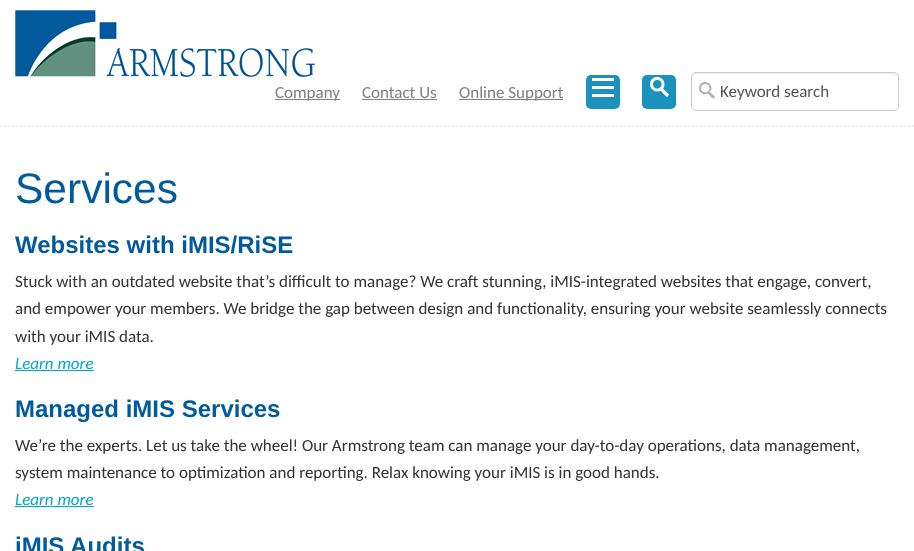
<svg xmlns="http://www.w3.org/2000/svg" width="914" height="551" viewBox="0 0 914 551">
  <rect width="100%" height="100%" fill="#fff"/>
  <path d="M0 126H914" fill="none" stroke="#eee" stroke-width="2" stroke-dasharray="2 2"/>
  <image x="15" y="10" width="300" height="67" href="img/1.png"/>
  <path d="M275 99h65v1H275z" fill="#808080"/>
  <path d="M362 99h75v1H362z" fill="#808080"/>
  <path d="M459 99h104v1H459z" fill="#808080"/>
  <rect x="586" y="75" width="34" height="34" rx="5" fill="#1b92be"/>
  <path d="M592 78h22v3H592z" fill="#fff"/>
  <path d="M592 86h22v3H592z" fill="#fff"/>
  <path d="M592 94h22v3H592z" fill="#fff"/>
  <rect x="642" y="75" width="34" height="34" rx="5" fill="#1b92be"/>
  <image x="650" y="77" width="19" height="20" href="img/2.png"/>
  <image x="699" y="82" width="16" height="17" href="img/3.png"/>
  <path d="M696 74H894C896 74 898 76 898 78V77C898 75 896 73 894 73H696C694 73 692 75 692 77V78C692 76 694 74 696 74Z" fill="#ececec"/>
  <rect x="691.5" y="72.5" width="207" height="38" rx="4.5" fill="none" stroke="#ccc"/>
  <path d="M15 370h79v1H15z" fill="#00a8c6"/>
  <path d="M15 506h79v1H15z" fill="#00a8c6"/>
  <g font-family="Carlito" font-size="17" fill="#808080">
    <text x="275" y="98">Company</text>
    <text x="362" y="98">Contact Us</text>
    <text x="459" y="98">Online Support</text>
  </g>
  <text x="720" y="97" font-family="Carlito" font-size="17" fill="#555">Keyword search</text>
  <text x="15" y="203" font-family="Liberation Sans" font-size="42.5" fill="#015a9c">Services</text>
  <text x="15" y="253" font-family="Liberation Sans" font-size="24" font-weight="bold" fill="#015a9c">Websites with iMIS/RiSE</text>
  <g font-family="Carlito" font-size="17" fill="#333">
    <text x="15" y="287">Stuck with an outdated website that’s difficult to manage? We craft stunning, iMIS-integrated websites that engage, convert,</text>
    <text x="15" y="314">and empower your members. We bridge the gap between design and functionality, ensuring your website seamlessly connects</text>
    <text x="15" y="342">with your iMIS data.</text>
  </g>
  <text x="15" y="369" font-family="Carlito" font-size="17" font-style="italic" fill="#00a8c6">Learn more</text>
  <text x="15" y="417" font-family="Liberation Sans" font-size="24" font-weight="bold" fill="#015a9c">Managed iMIS Services</text>
  <g font-family="Carlito" font-size="17" fill="#333">
    <text x="15" y="451">We’re the experts. Let us take the wheel! Our Armstrong team can manage your day-to-day operations, data management,</text>
    <text x="15" y="478">system maintenance to optimization and reporting. Relax knowing your iMIS is in good hands.</text>
  </g>
  <text x="15" y="505" font-family="Carlito" font-size="17" font-style="italic" fill="#00a8c6">Learn more</text>
  <text x="15" y="554" font-family="Liberation Sans" font-size="24" font-weight="bold" fill="#015a9c">iMIS Audits</text>
</svg>
